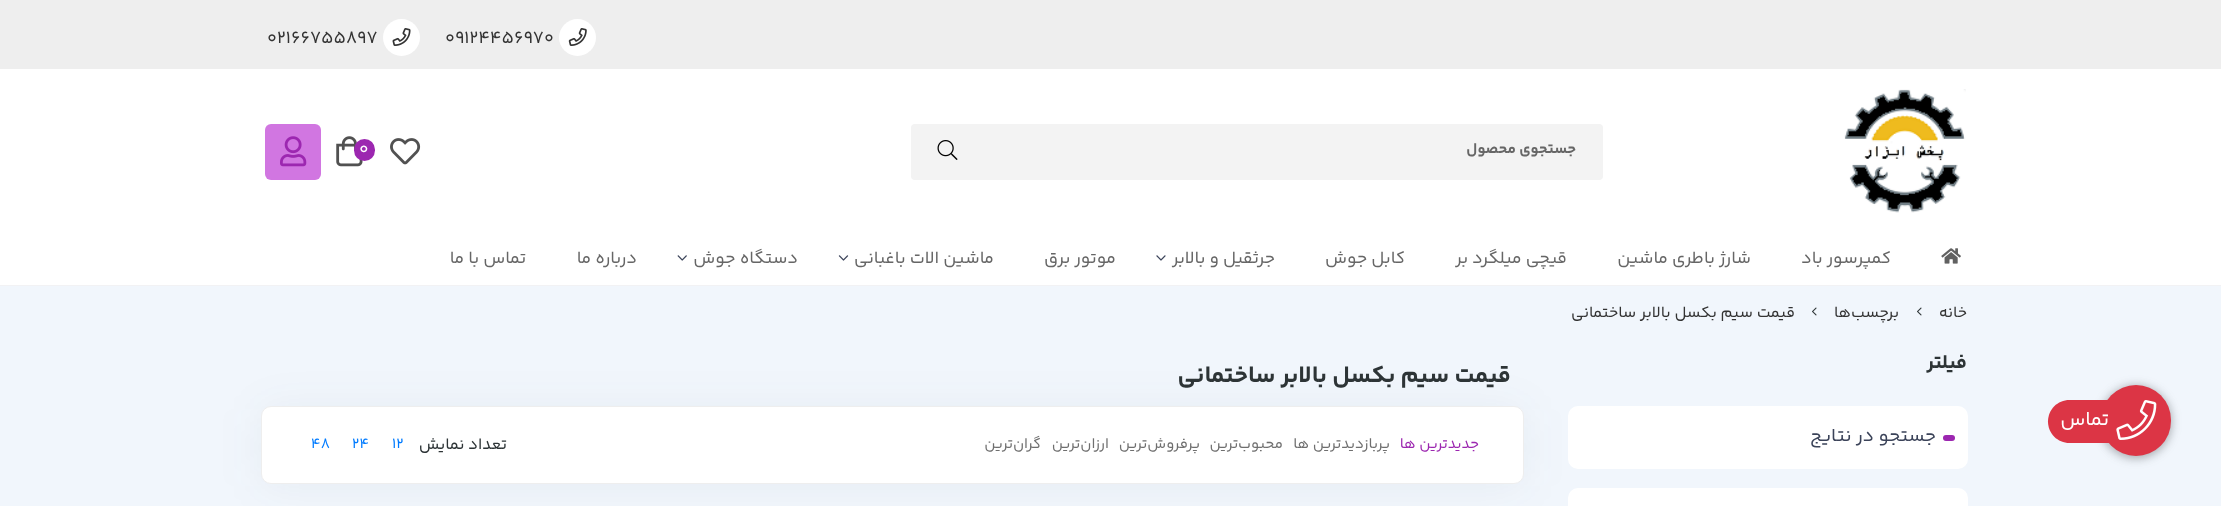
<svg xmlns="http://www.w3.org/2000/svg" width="2221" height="506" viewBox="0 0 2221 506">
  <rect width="100%" height="100%" fill="#f1f6fc"/>
  <rect x="2101" y="386" width="70" height="72" rx="35" fill="#00000026" filter="blur(6px)"/>
  <rect x="2101" y="386" width="70" height="72" rx="35" fill="#00000033" filter="blur(4px)"/>
  <rect x="2101" y="385" width="70" height="71" rx="35" fill="#dc3545"/>
  <image x="2116" y="400" width="41" height="40" href="img/1.png"/>
  <path d="M2069.5 400H2109V443H2069.5C2057.5 443 2048 433.5 2048 421.5C2048 409.5 2057.5 400 2069.5 400Z" fill="#dc3545"/>
  <path d="M0 0h2221v69H0z" fill="#eee"/>
  <circle cx="577.5" cy="37.5" r="18.5" fill="#fff"/>
  <image x="568" y="28" width="19" height="18" href="img/2.png"/>
  <circle cx="401.5" cy="37.5" r="18.5" fill="#fff"/>
  <image x="392" y="28" width="19" height="18" href="img/3.png"/>
  <path d="M0 69h2221v216H0z" fill="#fff"/>
  <image x="1844" y="89" width="122" height="124" href="img/4.png"/>
  <rect x="911" y="124" width="692" height="56" rx="4" fill="#f3f3f3"/>
  <image x="937" y="140" width="21" height="20" href="img/5.png"/>
  <image x="390" y="138" width="31" height="27" href="img/6.png"/>
  <image x="336" y="136" width="27" height="31" href="img/7.png"/>
  <rect x="354" y="139" width="21" height="22" rx="10.5" fill="#9c27b0"/>
  <rect x="265" y="124" width="56" height="56" rx="6" fill="#d176e1"/>
  <image x="280" y="136" width="27" height="31" href="img/8.png"/>
  <path d="M0 285h2221v1H0z" fill="#f2f2f4"/>
  <image x="1941" y="248" width="20" height="16" href="img/9.png"/>
  <image x="1156" y="255" width="10" height="6" href="img/10.png"/>
  <image x="838" y="255" width="11" height="6" href="img/11.png"/>
  <image x="677" y="255" width="10" height="6" href="img/12.png"/>
  <image x="1917" y="307" width="5" height="9" href="img/13.png"/>
  <image x="1812" y="307" width="5" height="9" href="img/13.png"/>
  <rect x="1568" y="406" width="400" height="63" rx="10" fill="#fff"/>
  <rect x="1943" y="435" width="12" height="6" rx="3" fill="#9c27b0"/>
  <rect x="1568" y="488" width="400" height="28" rx="10" fill="#fff"/>
  <rect x="261" y="409" width="1263" height="77" rx="10" fill="#3b43590f" filter="blur(22px)"/>
  <rect x="261.5" y="406.5" width="1262" height="77" rx="9.5" fill="#fff" stroke="#eee"/>
  <text x="2109" y="425" font-family="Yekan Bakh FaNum" font-size="20" direction="rtl" fill="#fff">تماس</text>
  <g font-family="Yekan Bakh FaNum" font-size="18" fill="#333">
    <text x="445" y="43">09124456970</text>
    <text x="267" y="43">02166755897</text>
  </g>
  <text x="1576" y="153" font-family="Yekan Bakh FaNum" font-size="15" font-weight="bold" direction="rtl" fill="#666">جستجوی محصول</text>
  <text x="359" y="154" font-family="Yekan Bakh FaNum" font-size="17.5" fill="#fff">0</text>
  <g font-family="Yekan Bakh FaNum" font-size="17.5" direction="rtl" fill="#666">
    <text x="1891" y="263">کمپرسور باد</text>
    <text x="1751" y="263">شارژ باطری ماشین</text>
    <text x="1567" y="263">قیچی میلگرد بر</text>
    <text x="1405" y="263">کابل جوش</text>
    <text x="1275" y="263">جرثقیل</text>
    <text x="1219" y="263">و بالابر</text>
    <text x="1116" y="263">موتور برق</text>
    <text x="994" y="263">ماشین الات باغبانی</text>
    <text x="798" y="263">دستگاه جوش</text>
    <text x="637" y="263">درباره ما</text>
    <text x="526" y="263">تماس با ما</text>
  </g>
  <g font-family="Yekan Bakh FaNum" font-size="16" direction="rtl" fill="#333">
    <text x="1967" y="317">خانه</text>
    <text x="1899" y="317">برچسب‌ها</text>
    <text x="1795" y="317">قیمت سیم بکسل بالابر ساختمانی</text>
  </g>
  <text x="1967" y="368" font-family="Yekan Bakh FaNum" font-size="20" font-weight="bold" direction="rtl" fill="#2d3436">فیلتر</text>
  <text x="1936" y="441" font-family="Yekan Bakh FaNum" font-size="18.75" direction="rtl" fill="#3b4359">جستجو در نتایج</text>
  <text x="1511" y="382" font-family="Yekan Bakh FaNum" font-size="24" font-weight="bold" direction="rtl" fill="#2d3436">قیمت سیم بکسل بالابر ساختمانی</text>
  <text x="1479" y="448" font-family="Yekan Bakh FaNum" font-size="15" direction="rtl" fill="#9c27b0">جدیدترین ها</text>
  <g font-family="Yekan Bakh FaNum" font-size="15" direction="rtl" fill="#6f6f6f">
    <text x="1390" y="448">پربازدیدترین ها</text>
    <text x="1283" y="448">محبوب‌‌ترین</text>
    <text x="1200" y="448">پرفروش‌ترین</text>
    <text x="1109" y="448">ارزان‌ترین</text>
    <text x="1041" y="448">گران‌ترین</text>
  </g>
  <text x="507" y="449" font-family="Yekan Bakh FaNum" font-size="16.25" direction="rtl" fill="#2d3436">تعداد نمایش</text>
  <g font-family="Yekan Bakh FaNum" font-size="15" fill="#007bff">
    <text x="392" y="448">12</text>
    <text x="352" y="448">24</text>
    <text x="311" y="448">48</text>
  </g>
</svg>
